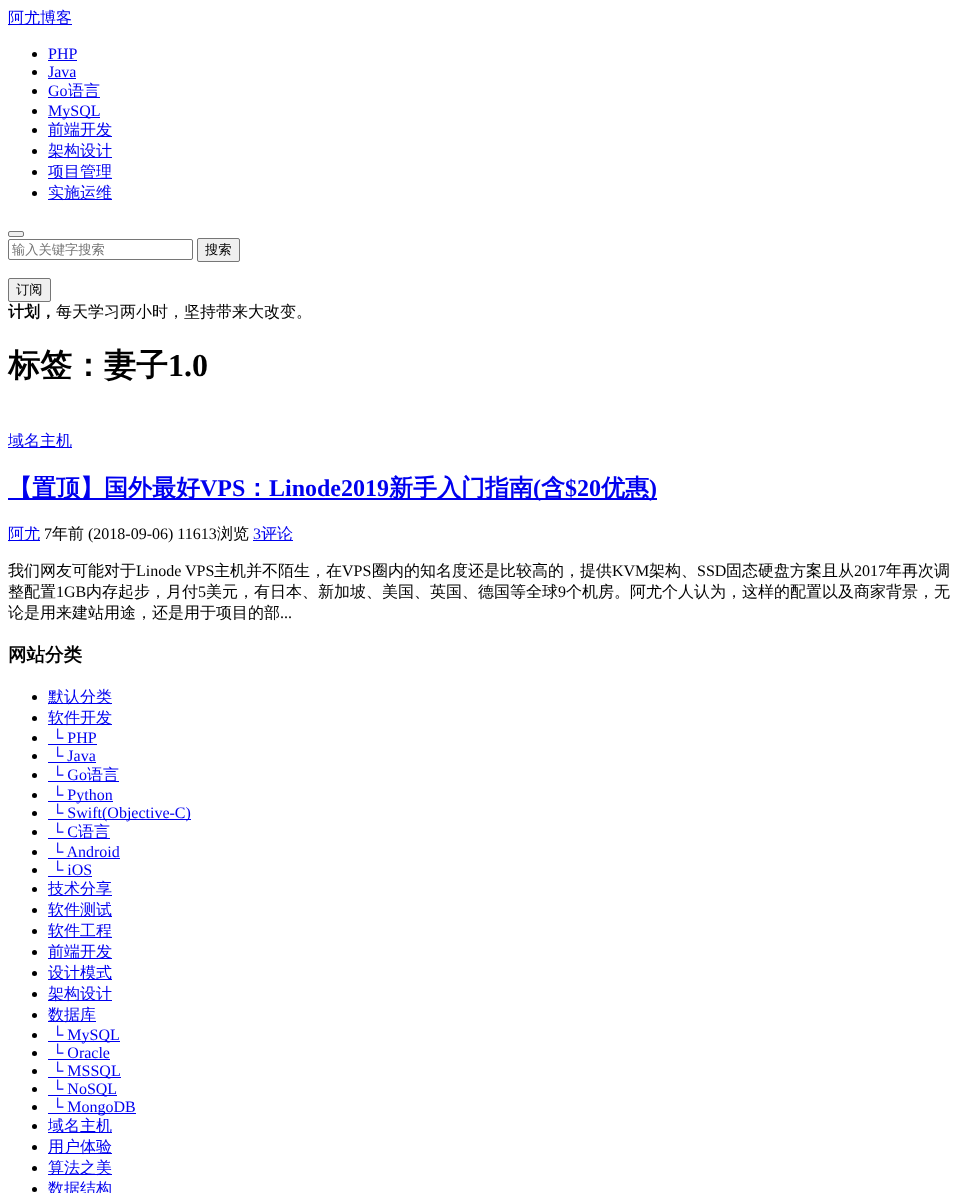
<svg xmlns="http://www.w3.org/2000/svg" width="968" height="1193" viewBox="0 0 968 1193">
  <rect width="100%" height="100%" fill="#fff"/>
  <path d="M8 24h64v1H8z" fill="#00e"/>
  <circle cx="34.5" cy="54.5" r="2.5" fill="#000"/>
  <path d="M48 60h29v1H48z" fill="#00e"/>
  <circle cx="34.5" cy="72.5" r="2.5" fill="#000"/>
  <path d="M48 78h28v1H48z" fill="#00e"/>
  <circle cx="34.5" cy="91.5" r="2.5" fill="#000"/>
  <path d="M48 97h52v1H48z" fill="#00e"/>
  <circle cx="34.5" cy="111.5" r="2.5" fill="#000"/>
  <path d="M48 117h52v1H48z" fill="#00e"/>
  <circle cx="34.5" cy="130.5" r="2.5" fill="#000"/>
  <path d="M48 136h64v1H48z" fill="#00e"/>
  <circle cx="34.5" cy="151.5" r="2.5" fill="#000"/>
  <path d="M48 157h64v1H48z" fill="#00e"/>
  <circle cx="34.5" cy="172.5" r="2.5" fill="#000"/>
  <path d="M48 178h64v1H48z" fill="#00e"/>
  <circle cx="34.5" cy="193.5" r="2.5" fill="#000"/>
  <path d="M48 199h64v1H48z" fill="#00e"/>
  <rect x="8.5" y="231.5" width="15" height="5" rx="1.5" fill="#efefef" stroke="#767676"/>
  <rect x="8.5" y="239.5" width="184" height="20" rx="1.5" fill="none" stroke="#767676"/>
  <rect x="197.5" y="238.5" width="42" height="23" rx="1.5" fill="#efefef" stroke="#767676"/>
  <rect x="8.5" y="278.5" width="42" height="23" rx="1.5" fill="#efefef" stroke="#767676"/>
  <path d="M8 447h64v1H8z" fill="#00e"/>
  <path d="M8 498h649v2H8z" fill="#00e"/>
  <path d="M8 540h32v1H8z" fill="#00e"/>
  <path d="M253 540h40v1H253z" fill="#00e"/>
  <circle cx="34.5" cy="697.5" r="2.5" fill="#000"/>
  <path d="M48 703h64v1H48z" fill="#00e"/>
  <circle cx="34.5" cy="718.5" r="2.5" fill="#000"/>
  <path d="M48 724h64v1H48z" fill="#00e"/>
  <circle cx="34.5" cy="738.5" r="2.5" fill="#000"/>
  <path d="M48 744h49v1H48z" fill="#00e"/>
  <circle cx="34.5" cy="756.5" r="2.5" fill="#000"/>
  <path d="M48 762h48v1H48z" fill="#00e"/>
  <circle cx="34.5" cy="775.5" r="2.5" fill="#000"/>
  <path d="M48 781h71v1H48z" fill="#00e"/>
  <circle cx="34.5" cy="795.5" r="2.5" fill="#000"/>
  <path d="M48 801h65v1H48z" fill="#00e"/>
  <circle cx="34.5" cy="813.5" r="2.5" fill="#000"/>
  <path d="M48 819h143v1H48z" fill="#00e"/>
  <circle cx="34.5" cy="832.5" r="2.5" fill="#000"/>
  <path d="M48 838h62v1H48z" fill="#00e"/>
  <circle cx="34.5" cy="852.5" r="2.5" fill="#000"/>
  <path d="M48 858h72v1H48z" fill="#00e"/>
  <circle cx="34.5" cy="870.5" r="2.5" fill="#000"/>
  <path d="M48 876h44v1H48z" fill="#00e"/>
  <circle cx="34.5" cy="889.5" r="2.5" fill="#000"/>
  <path d="M48 895h64v1H48z" fill="#00e"/>
  <circle cx="34.5" cy="910.5" r="2.5" fill="#000"/>
  <path d="M48 916h64v1H48z" fill="#00e"/>
  <circle cx="34.5" cy="931.5" r="2.5" fill="#000"/>
  <path d="M48 937h64v1H48z" fill="#00e"/>
  <circle cx="34.5" cy="952.5" r="2.5" fill="#000"/>
  <path d="M48 958h64v1H48z" fill="#00e"/>
  <circle cx="34.5" cy="973.5" r="2.5" fill="#000"/>
  <path d="M48 979h64v1H48z" fill="#00e"/>
  <circle cx="34.5" cy="994.5" r="2.5" fill="#000"/>
  <path d="M48 1000h64v1H48z" fill="#00e"/>
  <circle cx="34.5" cy="1015.5" r="2.5" fill="#000"/>
  <path d="M48 1021h48v1H48z" fill="#00e"/>
  <circle cx="34.5" cy="1035.5" r="2.5" fill="#000"/>
  <path d="M48 1041h72v1H48z" fill="#00e"/>
  <circle cx="34.5" cy="1053.5" r="2.5" fill="#000"/>
  <path d="M48 1059h62v1H48z" fill="#00e"/>
  <circle cx="34.5" cy="1071.5" r="2.5" fill="#000"/>
  <path d="M48 1077h73v1H48z" fill="#00e"/>
  <circle cx="34.5" cy="1089.5" r="2.5" fill="#000"/>
  <path d="M48 1095h69v1H48z" fill="#00e"/>
  <circle cx="34.5" cy="1107.5" r="2.5" fill="#000"/>
  <path d="M48 1113h88v1H48z" fill="#00e"/>
  <circle cx="34.5" cy="1126.5" r="2.5" fill="#000"/>
  <path d="M48 1132h64v1H48z" fill="#00e"/>
  <circle cx="34.5" cy="1147.5" r="2.5" fill="#000"/>
  <path d="M48 1153h64v1H48z" fill="#00e"/>
  <circle cx="34.5" cy="1168.5" r="2.5" fill="#000"/>
  <path d="M48 1174h64v1H48z" fill="#00e"/>
  <circle cx="34.5" cy="1189.5" r="2.5" fill="#000"/>
  <text x="8" y="23" font-family="WenQuanYi Zen Hei" font-size="16" font-weight="500" fill="#00e">阿尤博客</text>
  <g font-family="Liberation Serif" font-size="16" fill="#00e">
    <text x="48" y="59">PHP</text>
    <text x="48" y="77">Java</text>
    <text x="48" y="96">Go</text>
  </g>
  <text x="68" y="96" font-family="WenQuanYi Zen Hei" font-size="16" font-weight="500" fill="#00e">语言</text>
  <text x="48" y="116" font-family="Liberation Serif" font-size="16" fill="#00e">MySQL</text>
  <g font-family="WenQuanYi Zen Hei" font-size="16" font-weight="500" fill="#00e">
    <text x="48" y="135">前端开发</text>
    <text x="48" y="156">架构设计</text>
    <text x="48" y="177">项目管理</text>
    <text x="48" y="198">实施运维</text>
  </g>
  <text x="12" y="254" font-family="WenQuanYi Zen Hei" font-size="13.25" font-weight="500" fill="#757575">输入关键字搜索</text>
  <g font-family="WenQuanYi Zen Hei" font-size="13.25" font-weight="500" fill="#000">
    <text x="205" y="254">搜索</text>
    <text x="16" y="294">订阅</text>
  </g>
  <text x="8" y="317" font-family="WenQuanYi Zen Hei" font-size="16" font-weight="bold" fill="#000">计划，</text>
  <text x="56" y="317" font-family="WenQuanYi Zen Hei" font-size="16" font-weight="500" fill="#000">每天学习两小时，坚持带来大改变。</text>
  <text x="8" y="376" font-family="WenQuanYi Zen Hei" font-size="32" font-weight="bold" fill="#000">标签：妻子</text>
  <text x="168" y="376" font-family="Liberation Serif" font-size="32" font-weight="bold" fill="#000">1.0</text>
  <text x="8" y="446" font-family="WenQuanYi Zen Hei" font-size="16" font-weight="500" fill="#00e">域名主机</text>
  <text x="8" y="496" font-family="WenQuanYi Zen Hei" font-size="24" font-weight="bold" fill="#00e">【置顶】国外最好</text>
  <text x="200" y="496" font-family="Liberation Serif" font-size="24" font-weight="bold" fill="#00e">VPS</text>
  <text x="245" y="496" font-family="WenQuanYi Zen Hei" font-size="24" font-weight="bold" fill="#00e">：</text>
  <text x="269" y="496" font-family="Liberation Serif" font-size="24" font-weight="bold" fill="#00e">Linode2019</text>
  <text x="389" y="496" font-family="WenQuanYi Zen Hei" font-size="24" font-weight="bold" fill="#00e">新手入门指南</text>
  <text x="533" y="496" font-family="Liberation Serif" font-size="24" font-weight="bold" fill="#00e">(</text>
  <text x="541" y="496" font-family="WenQuanYi Zen Hei" font-size="24" font-weight="bold" fill="#00e">含</text>
  <text x="565" y="496" font-family="Liberation Serif" font-size="24" font-weight="bold" fill="#00e">$20</text>
  <text x="601" y="496" font-family="WenQuanYi Zen Hei" font-size="24" font-weight="bold" fill="#00e">优惠</text>
  <text x="649" y="496" font-family="Liberation Serif" font-size="24" font-weight="bold" fill="#00e">)</text>
  <text x="8" y="539" font-family="WenQuanYi Zen Hei" font-size="16" font-weight="500" fill="#00e">阿尤</text>
  <text x="44" y="539" font-family="Liberation Serif" font-size="16" fill="#000">7</text>
  <text x="52" y="539" font-family="WenQuanYi Zen Hei" font-size="16" font-weight="500" fill="#000">年前</text>
  <text x="88" y="539" font-family="Liberation Serif" font-size="16" fill="#000">(2018-09-06) 11613</text>
  <text x="217" y="539" font-family="WenQuanYi Zen Hei" font-size="16" font-weight="500" fill="#000">浏览</text>
  <text x="253" y="539" font-family="Liberation Serif" font-size="16" fill="#00e">3</text>
  <text x="261" y="539" font-family="WenQuanYi Zen Hei" font-size="16" font-weight="500" fill="#00e">评论</text>
  <text x="8" y="576" font-family="WenQuanYi Zen Hei" font-size="16" font-weight="500" fill="#000">我们网友可能对于</text>
  <text x="136" y="576" font-family="Liberation Serif" font-size="16" fill="#000">Linode VPS</text>
  <text x="214" y="576" font-family="WenQuanYi Zen Hei" font-size="16" font-weight="500" fill="#000">主机并不陌生，在</text>
  <text x="342" y="576" font-family="Liberation Serif" font-size="16" fill="#000">VPS</text>
  <text x="372" y="576" font-family="WenQuanYi Zen Hei" font-size="16" font-weight="500" fill="#000">圈内的知名度还是比较高的，提供</text>
  <text x="612" y="576" font-family="Liberation Serif" font-size="16" fill="#000">KVM</text>
  <text x="649" y="576" font-family="WenQuanYi Zen Hei" font-size="16" font-weight="500" fill="#000">架构、</text>
  <text x="697" y="576" font-family="Liberation Serif" font-size="16" fill="#000">SSD</text>
  <text x="726" y="576" font-family="WenQuanYi Zen Hei" font-size="16" font-weight="500" fill="#000">固态硬盘方案且从</text>
  <text x="854" y="576" font-family="Liberation Serif" font-size="16" fill="#000">2017</text>
  <g font-family="WenQuanYi Zen Hei" font-size="16" font-weight="500" fill="#000">
    <text x="886" y="576">年再次调</text>
    <text x="8" y="597">整配置</text>
  </g>
  <text x="56" y="597" font-family="Liberation Serif" font-size="16" fill="#000">1GB</text>
  <text x="86" y="597" font-family="WenQuanYi Zen Hei" font-size="16" font-weight="500" fill="#000">内存起步，月付</text>
  <text x="198" y="597" font-family="Liberation Serif" font-size="16" fill="#000">5</text>
  <text x="206" y="597" font-family="WenQuanYi Zen Hei" font-size="16" font-weight="500" fill="#000">美元，有日本、新加坡、美国、英国、德国等全球</text>
  <text x="558" y="597" font-family="Liberation Serif" font-size="16" fill="#000">9</text>
  <g font-family="WenQuanYi Zen Hei" font-size="16" font-weight="500" fill="#000">
    <text x="566" y="597">个机房。阿尤个人认为，这样的配置以及商家背景，无</text>
    <text x="8" y="618">论是用来建站用途，还是用于项目的部</text>
  </g>
  <text x="280" y="618" font-family="Liberation Serif" font-size="16" fill="#000">...</text>
  <text x="8" y="661" font-family="WenQuanYi Zen Hei" font-size="18.5" font-weight="bold" fill="#000">网站分类</text>
  <g font-family="WenQuanYi Zen Hei" font-size="16" font-weight="500" fill="#00e">
    <text x="48" y="702">默认分类</text>
    <text x="48" y="723">软件开发</text>
  </g>
  <g font-family="Liberation Serif" font-size="16" fill="#00e">
    <text x="52" y="743">└ PHP</text>
    <text x="52" y="761">└ Java</text>
    <text x="52" y="780">└ Go</text>
  </g>
  <text x="87" y="780" font-family="WenQuanYi Zen Hei" font-size="16" font-weight="500" fill="#00e">语言</text>
  <g font-family="Liberation Serif" font-size="16" fill="#00e">
    <text x="52" y="800">└ Python</text>
    <text x="52" y="818">└ Swift(Objective-C)</text>
    <text x="52" y="837">└ C</text>
  </g>
  <text x="78" y="837" font-family="WenQuanYi Zen Hei" font-size="16" font-weight="500" fill="#00e">语言</text>
  <g font-family="Liberation Serif" font-size="16" fill="#00e">
    <text x="52" y="857">└ Android</text>
    <text x="52" y="875">└ iOS</text>
  </g>
  <g font-family="WenQuanYi Zen Hei" font-size="16" font-weight="500" fill="#00e">
    <text x="48" y="894">技术分享</text>
    <text x="48" y="915">软件测试</text>
    <text x="48" y="936">软件工程</text>
    <text x="48" y="957">前端开发</text>
    <text x="48" y="978">设计模式</text>
    <text x="48" y="999">架构设计</text>
    <text x="48" y="1020">数据库</text>
  </g>
  <g font-family="Liberation Serif" font-size="16" fill="#00e">
    <text x="52" y="1040">└ MySQL</text>
    <text x="52" y="1058">└ Oracle</text>
    <text x="52" y="1076">└ MSSQL</text>
    <text x="52" y="1094">└ NoSQL</text>
    <text x="52" y="1112">└ MongoDB</text>
  </g>
  <g font-family="WenQuanYi Zen Hei" font-size="16" font-weight="500" fill="#00e">
    <text x="48" y="1131">域名主机</text>
    <text x="48" y="1152">用户体验</text>
    <text x="48" y="1173">算法之美</text>
    <text x="48" y="1194">数据结构</text>
  </g>
</svg>
